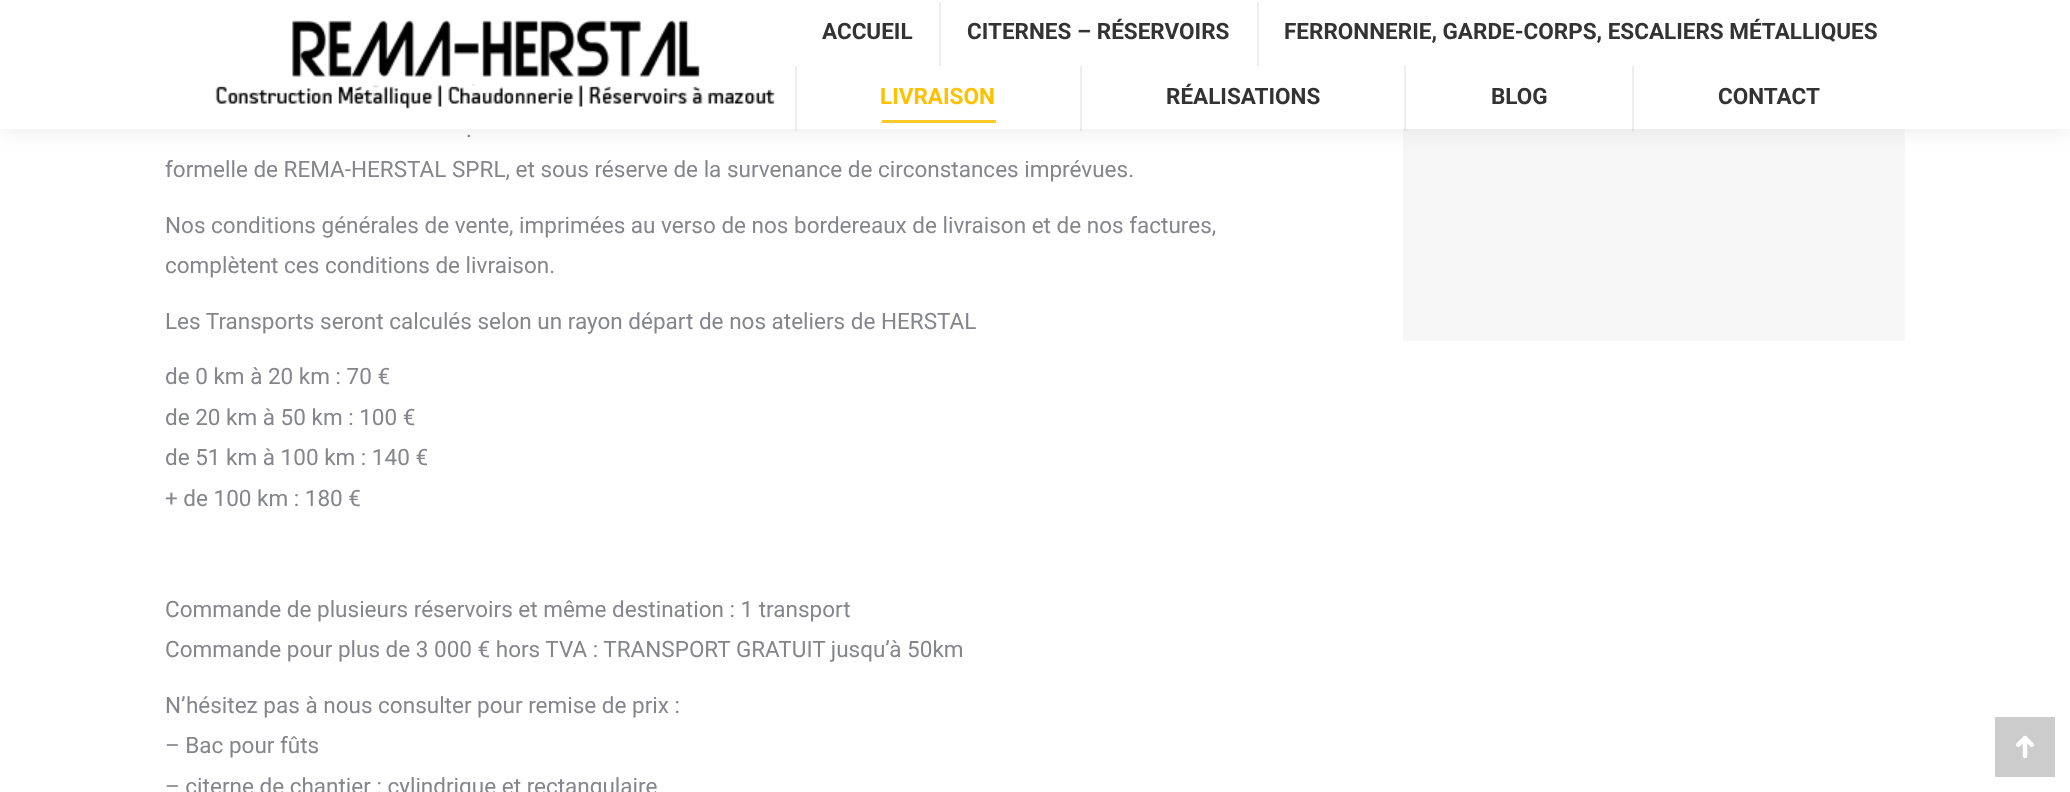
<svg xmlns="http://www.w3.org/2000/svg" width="2070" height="792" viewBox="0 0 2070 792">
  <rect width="100%" height="100%" fill="#fff"/>
  <path d="M1403 129h502v212H1403z" fill="#f7f7f7"/>
  <path d="M-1 -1h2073v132H-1z" fill="#00000012" filter="blur(11px)"/>
  <path d="M0 0h2070v129H0z" fill="#fff"/>
  <image x="215" y="20" width="560" height="89" href="img/1.png"/>
  <path d="M939 2h2v64H939z" fill="#eee"/>
  <path d="M1257 2h2v64H1257z" fill="#eee"/>
  <path d="M795 66h2v65H795z" fill="#5555551a"/>
  <path d="M882 120h114v3H882z" fill="#ffc926"/>
  <path d="M1080 66h2v65H1080z" fill="#5555551a"/>
  <path d="M1404 66h2v65H1404z" fill="#5555551a"/>
  <path d="M1632 66h2v65H1632z" fill="#5555551a"/>
  <path d="M1995 717h60v60H1995z" fill="#ccc"/>
  <image x="2016" y="735" width="18" height="24" href="img/2.png"/>
  <g font-family="Roboto" font-size="22.5" font-weight="bold" fill="#333">
    <text x="822" y="39">ACCUEIL</text>
    <text x="967" y="39">CITERNES – RÉSERVOIRS</text>
    <text x="1284" y="39">FERRONNERIE, GARDE-CORPS, ESCALIERS MÉTALLIQUES</text>
  </g>
  <text x="880" y="104" font-family="Roboto" font-size="22.5" font-weight="bold" fill="#ffc000">LIVRAISON</text>
  <g font-family="Roboto" font-size="22.5" font-weight="bold" fill="#333">
    <text x="1166" y="104">RÉALISATIONS</text>
    <text x="1491" y="104">BLOG</text>
    <text x="1718" y="104">CONTACT</text>
  </g>
  <g font-family="Roboto" font-size="22.5" fill="#85868c">
    <text x="466" y="137">.</text>
    <text x="165" y="177">formelle de REMA-HERSTAL SPRL, et sous réserve de la survenance de circonstances imprévues.</text>
    <text x="165" y="233">Nos conditions générales de vente, imprimées au verso de nos bordereaux de livraison et de nos factures,</text>
    <text x="165" y="273">complètent ces conditions de livraison.</text>
    <text x="165" y="329">Les Transports seront calculés selon un rayon départ de nos ateliers de HERSTAL</text>
    <text x="165" y="384">de 0 km à 20 km : 70 €</text>
    <text x="165" y="425">de 20 km à 50 km : 100 €</text>
    <text x="165" y="465">de 51 km à 100 km : 140 €</text>
    <text x="165" y="506">+ de 100 km : 180 €</text>
    <text x="165" y="617">Commande de plusieurs réservoirs et même destination : 1 transport</text>
    <text x="165" y="657">Commande pour plus de 3 000 € hors TVA : TRANSPORT GRATUIT jusqu’à 50km</text>
    <text x="165" y="713">N’hésitez pas à nous consulter pour remise de prix :</text>
    <text x="165" y="753">– Bac pour fûts</text>
    <text x="165" y="794">– citerne de chantier : cylindrique et rectangulaire</text>
  </g>
</svg>
